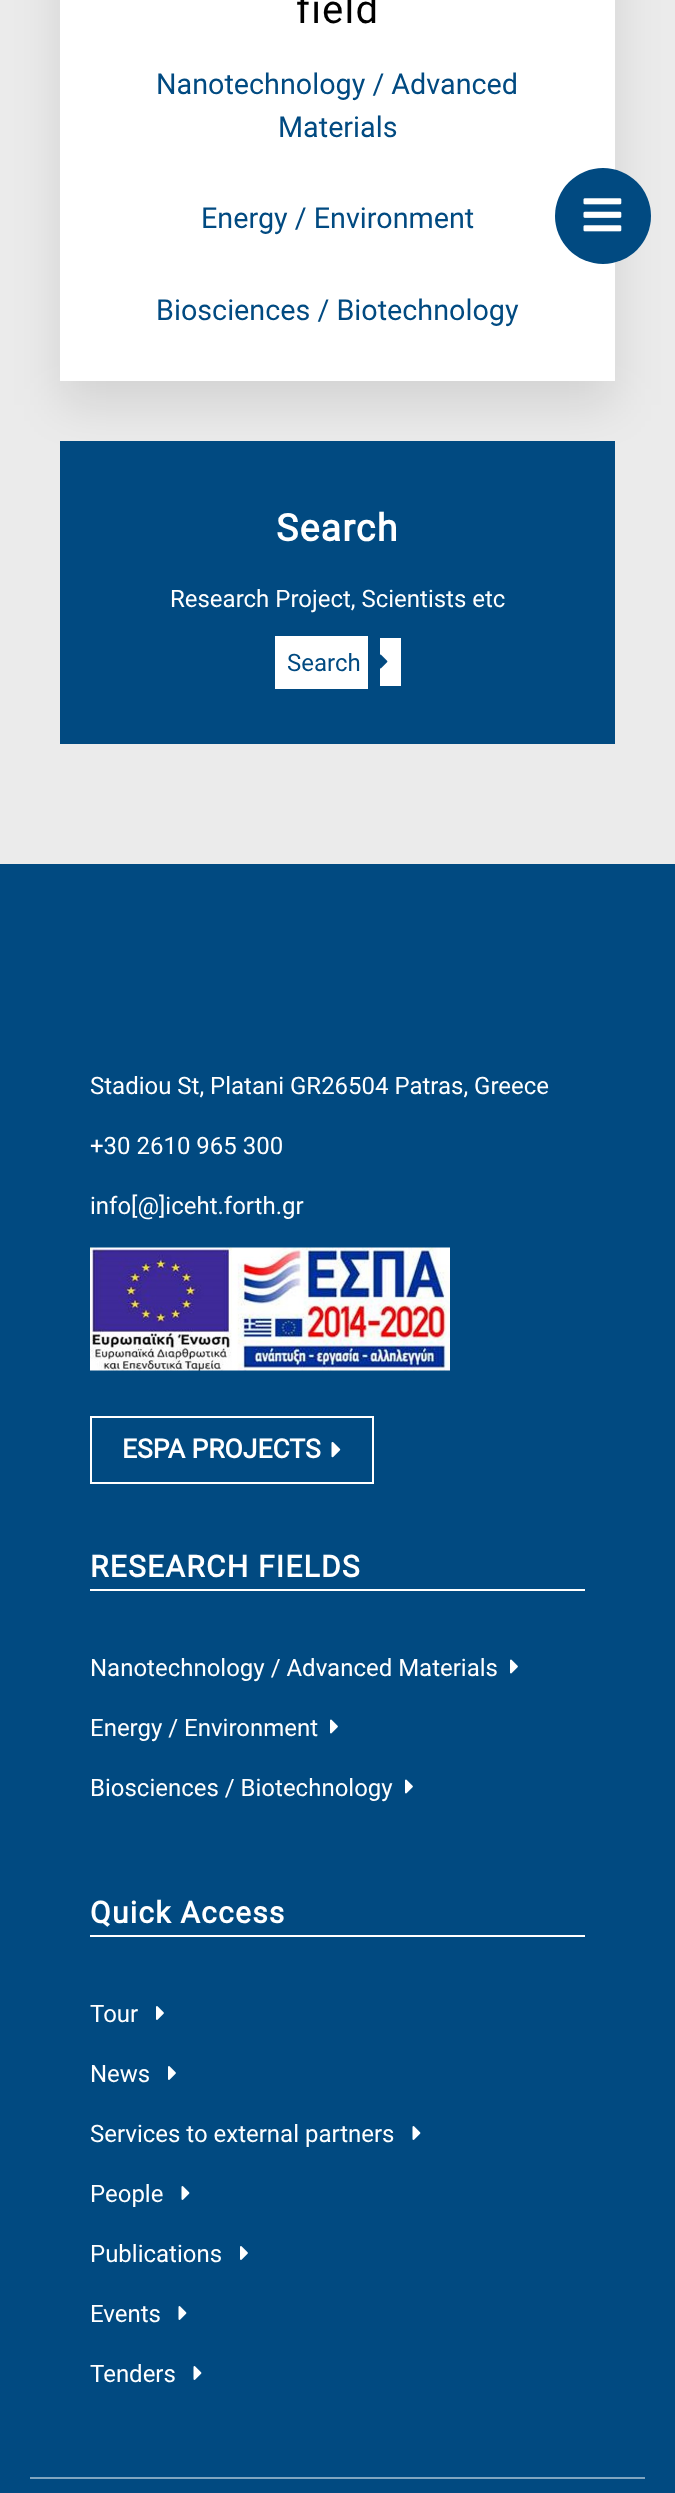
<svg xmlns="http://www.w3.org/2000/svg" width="675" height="2493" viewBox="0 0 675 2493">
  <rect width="100%" height="100%" fill="#ebebeb"/>
  <path d="M60 -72h555v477H60z" fill="#0000001a" filter="blur(24px)"/>
  <path d="M60 0h555v381H60z" fill="#fff"/>
  <path d="M60 441h555v303H60z" fill="#014a81"/>
  <path d="M275 636h93v53H275z" fill="#fff"/>
  <path d="M380 638h21v48H380z" fill="#fff"/>
  <image x="380" y="654" width="8" height="15" href="img/1.png"/>
  <circle cx="603" cy="216" r="48" fill="#014a81"/>
  <image x="583" y="198" width="39" height="34" href="img/2.png"/>
  <path d="M0 864h675v1629H0z" fill="#014a81"/>
  <image x="90" y="1247" width="360" height="124" href="img/3.png"/>
  <path d="M91 1417h282v66H91z" fill="none" stroke="#fff" stroke-width="2"/>
  <image x="331" y="1442" width="10" height="16" href="img/4.png"/>
  <path d="M90 1589h495v2H90z" fill="#fff"/>
  <image x="510" y="1659" width="8" height="15" href="img/5.png"/>
  <image x="330" y="1719" width="8" height="15" href="img/5.png"/>
  <image x="405" y="1779" width="8" height="15" href="img/5.png"/>
  <path d="M90 1935h495v2H90z" fill="#fff"/>
  <image x="156" y="2006" width="8" height="14" href="img/6.png"/>
  <image x="168" y="2066" width="8" height="14" href="img/6.png"/>
  <image x="412" y="2126" width="9" height="14" href="img/7.png"/>
  <image x="181" y="2186" width="9" height="14" href="img/7.png"/>
  <image x="240" y="2246" width="8" height="14" href="img/6.png"/>
  <image x="178" y="2306" width="9" height="14" href="img/7.png"/>
  <image x="193" y="2366" width="9" height="14" href="img/7.png"/>
  <path d="M30 2477h615v2H30z" fill="#80a5c0"/>
  <text x="296" y="23" font-family="Roboto" font-size="40" letter-spacing="1.25" fill="#000">field</text>
  <g font-family="Roboto" font-size="28.75" fill="#014a81">
    <text x="156" y="94">Nanotechnology / Advanced</text>
    <text x="278" y="137">Materials</text>
    <text x="201" y="228">Energy / Environment</text>
    <text x="156" y="320">Biosciences / Biotechnology</text>
  </g>
  <text x="276" y="541" font-family="Roboto" font-size="37.5" font-weight="bold" letter-spacing="1.25" fill="#fff">Search</text>
  <text x="170" y="607" font-family="Roboto" font-size="24" fill="#fff">Research Project, Scientists etc</text>
  <text x="287" y="671" font-family="Roboto" font-size="24" fill="#014a81">Search</text>
  <g font-family="Roboto" font-size="24" fill="#fff">
    <text x="90" y="1094">Stadiou St, Platani GR26504 Patras, Greece</text>
    <text x="90" y="1154">+30 2610 965 300</text>
    <text x="90" y="1214">info[@]iceht.forth.gr</text>
  </g>
  <text x="122" y="1458" font-family="Roboto" font-size="26.5" font-weight="bold" fill="#fff">ESPA PROJECTS</text>
  <text x="90" y="1577" font-family="Roboto" font-size="30" font-weight="bold" letter-spacing="1.25" fill="#fff">RESEARCH FIELDS</text>
  <g font-family="Roboto" font-size="24" fill="#fff">
    <text x="90" y="1676">Nanotechnology / Advanced Materials</text>
    <text x="90" y="1736">Energy / Environment</text>
    <text x="90" y="1796">Biosciences / Biotechnology</text>
  </g>
  <text x="90" y="1923" font-family="Roboto" font-size="30" font-weight="bold" letter-spacing="1.25" fill="#fff">Quick Access</text>
  <g font-family="Roboto" font-size="24" fill="#fff">
    <text x="90" y="2022">Tour</text>
    <text x="90" y="2082">News</text>
    <text x="90" y="2142">Services to external partners</text>
    <text x="90" y="2202">People</text>
    <text x="90" y="2262">Publications</text>
    <text x="90" y="2322">Events</text>
    <text x="90" y="2382">Tenders</text>
  </g>
</svg>
